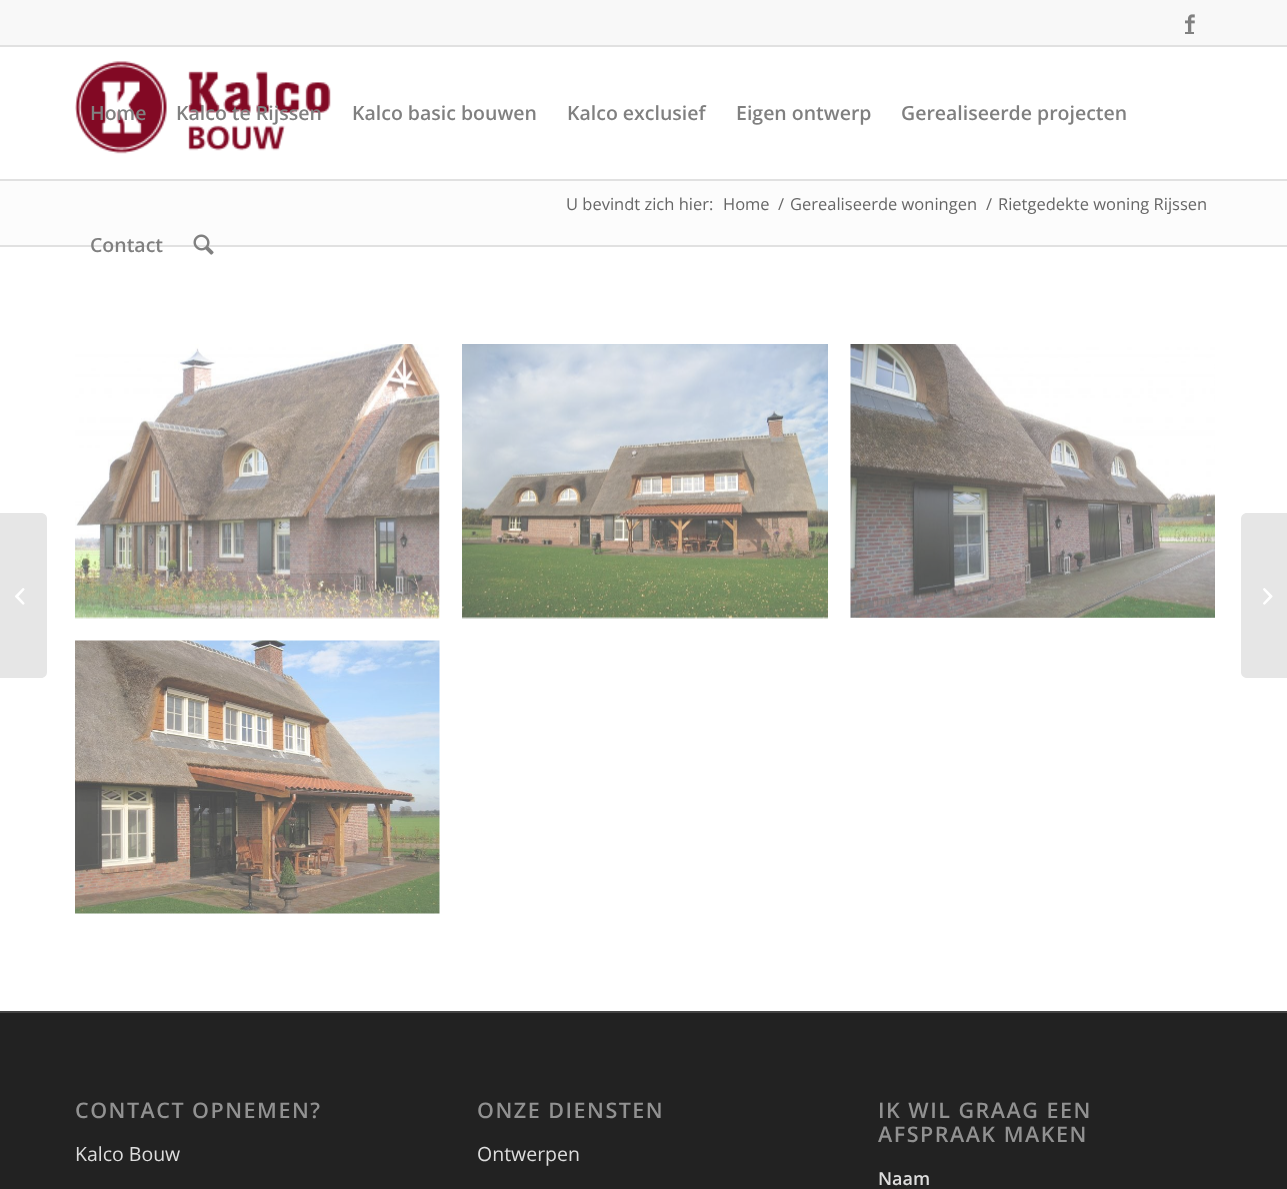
<svg xmlns="http://www.w3.org/2000/svg" width="1287" height="1189" viewBox="0 0 1287 1189">
  <rect width="100%" height="100%" fill="#fff"/>
  <path d="M0 0h1287v45H0z" fill="#f8f8f8"/>
  <path d="M0 45h1287v2H0z" fill="#e1e1e1"/>
  <image x="1185" y="14" width="10" height="18" href="img/1.png"/>
  <path d="M1185 32h9v2H1185z" fill="#808080"/>
  <path d="M0 179h1287v2H0z" fill="#e1e1e1"/>
  <image x="75" y="61" width="256" height="93" href="img/2.png"/>
  <path d="M0 181h1287v64H0z" fill="#fcfcfc"/>
  <path d="M0 245h1287v2H0z" fill="#e1e1e1"/>
  <image x="193" y="234" width="21" height="21" href="img/3.png"/>
  <path d="M0 513H41C44.5 513 47 515.5 47 519V672C47 675.5 44.5 678 41 678H0Z" fill="#e6e6e6"/>
  <image x="15" y="588" width="10" height="17" href="img/4.png"/>
  <image x="75" y="344" width="365" height="275" href="img/5.png"/>
  <image x="462" y="344" width="366" height="275" href="img/6.png"/>
  <image x="850" y="344" width="365" height="274" href="img/7.png"/>
  <image x="75" y="640" width="365" height="274" href="img/8.png"/>
  <path d="M0 1013h1287v176H0z" fill="#222"/>
  <path d="M0 1011h1287v2H0z" fill="#444"/>
  <path d="M1247 513H1287V678H1247C1243.5 678 1241 675.5 1241 672V519C1241 515.5 1243.5 513 1247 513Z" fill="#e6e6e6"/>
  <image x="1263" y="588" width="10" height="17" href="img/9.png"/>
  <g font-family="Open Sans" font-size="19.5" font-weight="600" fill="#808080">
    <text x="90" y="120">Home</text>
    <text x="176" y="120">Kalco te Rijssen</text>
    <text x="352" y="120">Kalco basic bouwen</text>
    <text x="567" y="120">Kalco exclusief</text>
    <text x="736" y="120">Eigen ontwerp</text>
    <text x="901" y="120">Gerealiseerde projecten</text>
    <text x="90" y="252">Contact</text>
  </g>
  <g font-family="Open Sans" font-size="16.5" fill="#666">
    <text x="566" y="210">U bevindt zich hier:</text>
    <text x="723" y="210">Home</text>
    <text x="778" y="210">/</text>
    <text x="790" y="210">Gerealiseerde woningen</text>
    <text x="986" y="210">/</text>
    <text x="998" y="210">Rietgedekte woning Rijssen</text>
  </g>
  <text x="75" y="1118" font-family="Open Sans" font-size="21.5" font-weight="600" letter-spacing="1.5" fill="#919191">CONTACT OPNEMEN?</text>
  <text x="75" y="1161" font-family="Open Sans" font-size="19.5" fill="#ddd">Kalco Bouw</text>
  <text x="477" y="1118" font-family="Open Sans" font-size="21.5" font-weight="600" letter-spacing="1.5" fill="#919191">ONZE DIENSTEN</text>
  <text x="477" y="1161" font-family="Open Sans" font-size="19.5" fill="#ddd">Ontwerpen</text>
  <g font-family="Open Sans" font-size="21.5" font-weight="600" letter-spacing="1.5" fill="#919191">
    <text x="878" y="1118">IK WIL GRAAG EEN</text>
    <text x="878" y="1142">AFSPRAAK MAKEN</text>
  </g>
  <text x="878" y="1185" font-family="Open Sans" font-size="18" font-weight="600" fill="#ddd">Naam</text>
</svg>
